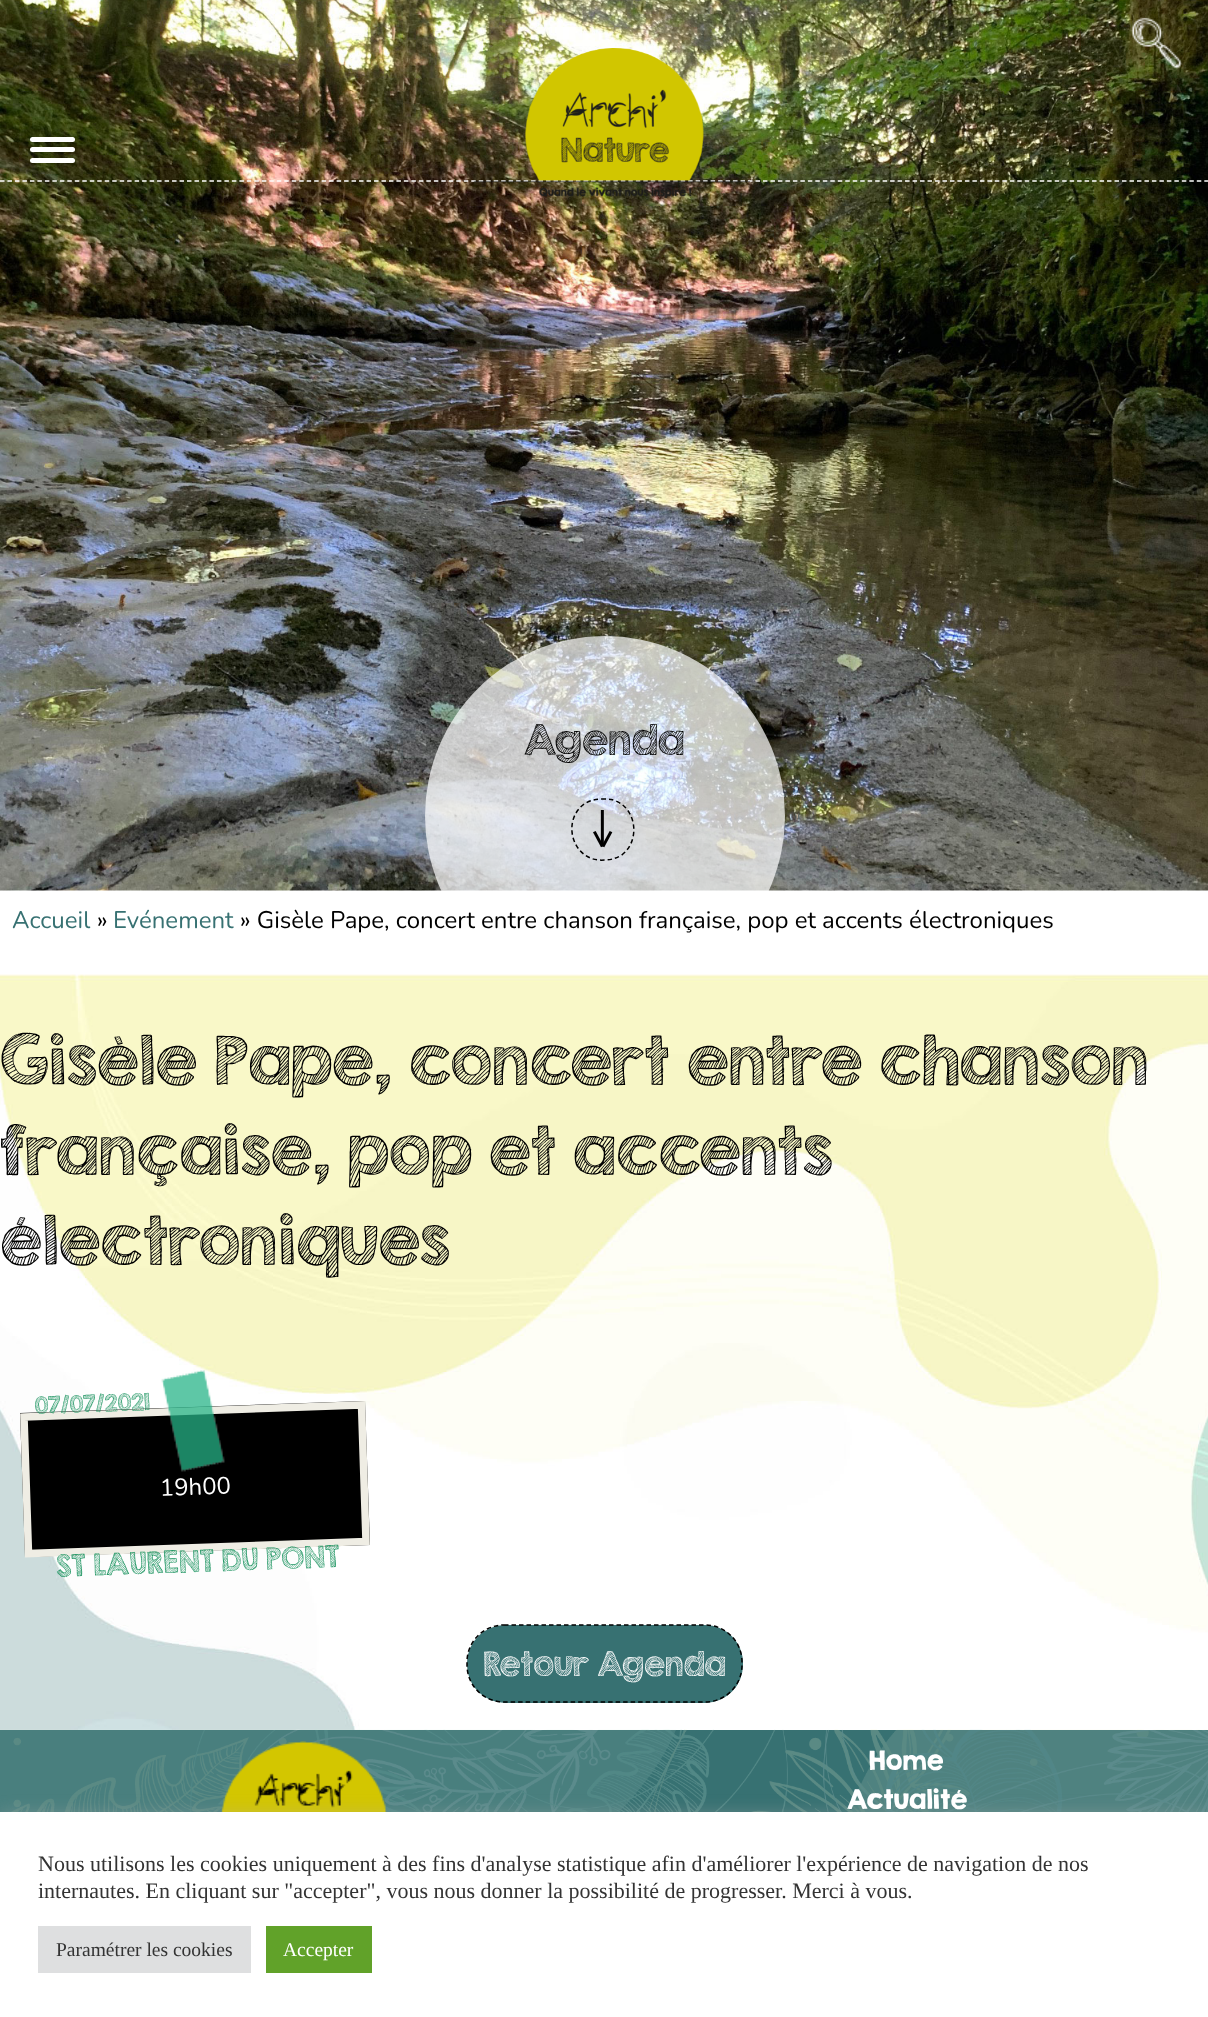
<svg xmlns="http://www.w3.org/2000/svg" width="1208" height="2017" viewBox="0 0 1208 2017">
  <defs>
    <clipPath id="clip1"><path d="M0 0h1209v891H0z"/></clipPath>
  </defs>
  <rect width="100%" height="100%" fill="#fff"/>
  <image x="0" y="0" width="1208" height="891" href="img/3.png"/>
  <path d="M0 181H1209" fill="none" stroke="#fff" stroke-width="1.5" stroke-dasharray="4.5 2.98"/>
  <image x="1131" y="17" width="52" height="53" href="img/1.png"/>
  <rect x="30" y="137" width="45" height="5" rx="2.5" fill="#fff"/>
  <rect x="30" y="147" width="45" height="5" rx="2.5" fill="#fff"/>
  <rect x="30" y="158" width="45" height="5" rx="2.5" fill="#fff"/>
  <image x="473" y="48" width="278" height="150" href="img/2.png"/>
  <image x="0" y="974" width="1208" height="756" href="img/5.png"/>
  <path d="M20 1413L365 1401L370 1545L25 1557Z" fill="#000"/>
  <path d="M24 1417L361.5 1405L366 1541.5L28.5 1553.5Z" fill="none" stroke="#efede4" stroke-width="7.5"/>
  <image x="161" y="1370" width="64" height="102" href="img/6.png"/>
  <rect x="467" y="1625" width="276" height="78" rx="38" fill="#377172"/>
  <path d="M504 1625H705C725.5 1625 742 1641.5 742 1662V1665C742 1685.5 725.5 1702 705 1702H504C483.5 1702 467 1685.5 467 1665V1662C467 1641.5 483.5 1625 504 1625Z" fill="none" stroke="#000" stroke-width="1.5" stroke-dasharray="4.5 3"/>
  <path d="M0 1730h1208v82H0z" fill="#377172"/>
  <image x="0" y="1729" width="1208" height="83" href="img/7.png"/>
  <image x="221" y="1741" width="167" height="71" href="img/8.png"/>
  <path d="M0 1811h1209v205H0z" fill="#acabab4d" filter="blur(7.5px)"/>
  <path d="M0 1812h1208v205H0z" fill="#fff"/>
  <path d="M38 1926h213v47H38z" fill="#dedfe0"/>
  <path d="M266 1926h106v47H266z" fill="#61a229"/>
  <text x="12" y="928" font-family="Nunito" font-size="24" fill="#377172">Accueil</text>
  <text x="97" y="928" font-family="Nunito" font-size="24" fill="#000">»</text>
  <text x="113" y="928" font-family="Nunito" font-size="24" fill="#377172">Evénement</text>
  <text x="240" y="928" font-family="Nunito" font-size="24" fill="#000">» Gisèle Pape, concert entre chanson française, pop et accents électroniques</text>
  <g clip-path="url(#clip1)">
    <circle cx="605" cy="816" r="180" fill="#ffffffb3"/>
  </g>
  <image x="593" y="810" width="20" height="38" href="img/4.png"/>
  <path d="M601.5 799C606.5 799 611 799 616 801C637.5 810 640 842.5 621 855.5C615.5 858.5 610.5 860 604.5 860C573 863 560 820.5 585 803.5C590 800.5 595.5 799 601.5 799Z" fill="none" stroke="#000" stroke-width="1.5" stroke-dasharray="4.5 3"/>
  <text x="524" y="755" font-family="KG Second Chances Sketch" font-size="37.5" fill="#000">Agenda</text>
  <g font-family="KG Second Chances Sketch" font-size="60" fill="#000">
    <text x="0" y="1085">Gisèle Pape, concert entre chanson</text>
    <text x="0" y="1175">française, pop et accents</text>
    <text x="0" y="1265">électroniques</text>
  </g>
  <text x="35" y="1414" transform="rotate(-2 35 1414)" font-family="KG Second Chances Sketch" font-size="21" fill="#1f9562">07/07/2021</text>
  <text x="160" y="1496" transform="rotate(-2 160 1496)" font-family="Nunito" font-size="24" fill="#fff">19h00</text>
  <text x="57" y="1577" transform="rotate(-2 57 1577)" font-family="KG Second Chances Sketch" font-size="27" fill="#1f9562">ST LAURENT DU PONT</text>
  <text x="483" y="1676" font-family="KG Second Chances Sketch" font-size="30" fill="#fff">Retour Agenda</text>
  <g font-family="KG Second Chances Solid" font-size="24" fill="#fff">
    <text x="869" y="1770">Home</text>
    <text x="847" y="1809">Actualité</text>
  </g>
  <g font-family="Liberation Serif" font-size="22" fill="#333">
    <text x="38" y="1871">Nous utilisons les cookies uniquement à des fins d'analyse statistique afin d'améliorer l'expérience de navigation de nos</text>
    <text x="38" y="1898">internautes. En cliquant sur "accepter", vous nous donner la possibilité de progresser. Merci à vous.</text>
  </g>
  <text x="56" y="1956" font-family="Liberation Serif" font-size="19.5" fill="#333">Paramétrer les cookies</text>
  <text x="283" y="1956" font-family="Liberation Serif" font-size="19.5" fill="#fff">Accepter</text>
</svg>
